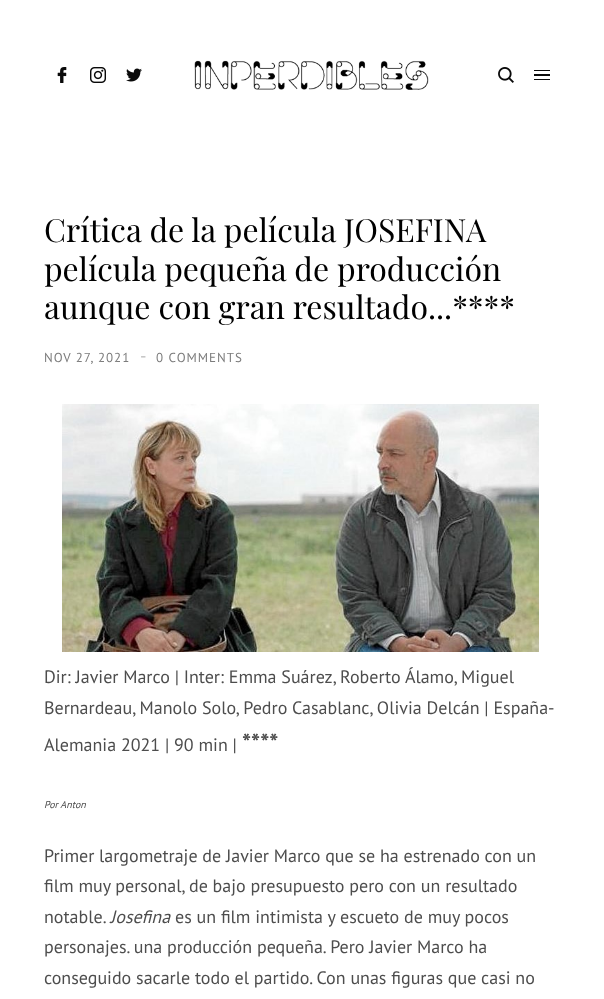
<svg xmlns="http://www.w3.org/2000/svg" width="604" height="999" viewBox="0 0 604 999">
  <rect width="100%" height="100%" fill="#fff"/>
  <image x="57" y="67" width="10" height="16" href="img/1.png"/>
  <image x="90" y="67" width="16" height="16" href="img/2.png"/>
  <image x="126" y="68" width="16" height="14" href="img/3.png"/>
  <image x="194" y="60" width="235" height="30" href="img/4.png"/>
  <image x="498" y="67" width="16" height="16" href="img/5.png"/>
  <path d="M534 79h16v1H534z" fill="#0a0a0a"/>
  <path d="M534 74h16v2H534z" fill="#0a0a0a"/>
  <path d="M534 70h16v1H534z" fill="#0a0a0a"/>
  <image x="62" y="404" width="477" height="248" href="img/6.png"/>
  <g font-family="Playfair Display" font-size="32" fill="#000">
    <text x="44" y="242">Crítica de la película JOSEFINA</text>
    <text x="44" y="281">película pequeña de producción</text>
    <text x="44" y="319">aunque con gran resultado...****</text>
  </g>
  <text x="44" y="362" font-family="PT Sans" font-size="13" letter-spacing="1" fill="#7c7c7c">NOV 27, 2021</text>
  <text x="140" y="362" font-family="PT Sans" font-size="18" letter-spacing="1" fill="#bebebe">-</text>
  <text x="156" y="362" font-family="PT Sans" font-size="13" letter-spacing="1" fill="#7c7c7c">0 COMMENTS</text>
  <g font-family="PT Sans" font-size="18" fill="#4d4d4d">
    <text x="44" y="683">Dir: Javier Marco | Inter: Emma Suárez, Roberto Álamo, Miguel</text>
    <text x="44" y="714">Bernardeau, Manolo Solo, Pedro Casablanc, Olivia Delcán | España-</text>
  </g>
  <text x="242" y="751" font-family="PT Sans" font-size="24" font-weight="bold" fill="#4d4d4d">****</text>
  <text x="44" y="751" font-family="PT Sans" font-size="18" fill="#4d4d4d">Alemania 2021 | 90 min |</text>
  <text x="44" y="808" font-family="PT Sans" font-size="10" font-style="italic" fill="#4d4d4d">Por Anton</text>
  <g font-family="PT Sans" font-size="18" fill="#4d4d4d">
    <text x="44" y="862">Primer largometraje de Javier Marco que se ha estrenado con un</text>
    <text x="44" y="892">film muy personal, de bajo presupuesto pero con un resultado</text>
    <text x="44" y="923">notable.</text>
  </g>
  <text x="110" y="923" font-family="PT Sans" font-size="18" font-style="italic" fill="#4d4d4d">Josefina</text>
  <g font-family="PT Sans" font-size="18" fill="#4d4d4d">
    <text x="175" y="923">es un film intimista y escueto de muy pocos</text>
    <text x="44" y="953">personajes. una producción pequeña. Pero Javier Marco ha</text>
    <text x="44" y="984">conseguido sacarle todo el partido. Con unas figuras que casi no</text>
  </g>
</svg>
